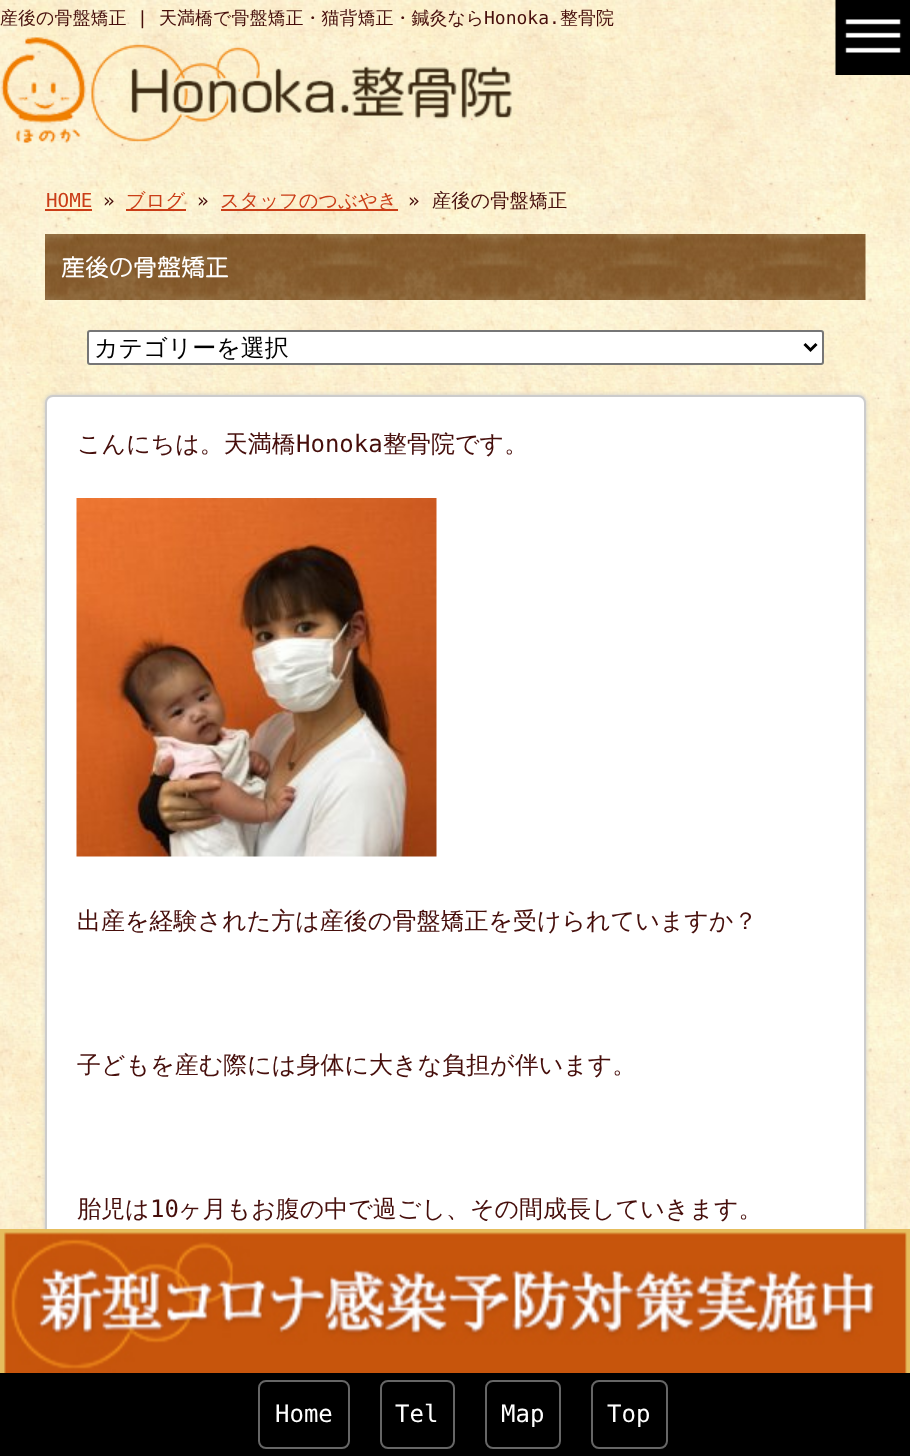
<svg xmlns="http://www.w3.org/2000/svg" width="910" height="1456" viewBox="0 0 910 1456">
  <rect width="100%" height="100%" fill="#fff"/>
  <image x="0" y="0" width="910" height="1229" href="img/1.png"/>
  <image x="1" y="37" width="513" height="106" href="img/2.png"/>
  <image x="835" y="0" width="75" height="75" href="img/3.png"/>
  <path d="M45 209h47v2H45z" fill="#ca3d17"/>
  <path d="M126 209h60v2H126z" fill="#ca3d17"/>
  <path d="M221 209h177v2H221z" fill="#ca3d17"/>
  <image x="45" y="234" width="821" height="66" href="img/4.png"/>
  <rect x="88" y="331" width="735" height="33" rx="2" fill="#fff" stroke="#767676" stroke-width="2"/>
  <path d="M804.5 344L810.5 350L816.5 344" fill="none" stroke="#000" stroke-width="3"/>
  <rect x="45" y="395" width="821" height="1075" rx="8" fill="#ccc" filter="blur(2px)"/>
  <rect x="46" y="396" width="819" height="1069" rx="7" fill="#fff" stroke="#ccc" stroke-width="2"/>
  <image x="76" y="498" width="361" height="359" href="img/5.png"/>
  <image x="0" y="1229" width="910" height="144" href="img/6.png"/>
  <path d="M0 1373h910v83H0z" fill="#000"/>
  <rect x="259" y="1381" width="90" height="67" rx="7" fill="none" stroke="#666" stroke-width="2"/>
  <rect x="381" y="1381" width="73" height="67" rx="7" fill="none" stroke="#666" stroke-width="2"/>
  <rect x="486" y="1381" width="74" height="67" rx="7" fill="none" stroke="#666" stroke-width="2"/>
  <rect x="592" y="1381" width="75" height="67" rx="7" fill="none" stroke="#666" stroke-width="2"/>
  <text x="0" y="24" font-family="WenQuanYi Zen Hei" font-size="18" font-weight="500" fill="#460e0b">産後の骨盤矯正</text>
  <text x="137" y="24" font-family="DejaVu Sans Mono" font-size="18" fill="#460e0b">|</text>
  <text x="159" y="24" font-family="WenQuanYi Zen Hei" font-size="18" font-weight="500" fill="#460e0b">天満橋で骨盤矯正・猫背矯正・鍼灸なら</text>
  <text x="484" y="24" font-family="DejaVu Sans Mono" font-size="18" fill="#460e0b">Honoka.</text>
  <text x="560" y="24" font-family="WenQuanYi Zen Hei" font-size="18" font-weight="500" fill="#460e0b">整骨院</text>
  <text x="46" y="207" font-family="DejaVu Sans Mono" font-size="19.25" fill="#ca3d17">HOME</text>
  <text x="103" y="207" font-family="DejaVu Sans Mono" font-size="19.25" fill="#460e0b">»</text>
  <text x="126" y="207" font-family="WenQuanYi Zen Hei" font-size="19.25" font-weight="500" fill="#ca3d17">ブログ</text>
  <text x="197" y="207" font-family="DejaVu Sans Mono" font-size="19.25" fill="#460e0b">»</text>
  <text x="220" y="207" font-family="WenQuanYi Zen Hei" font-size="19.25" font-weight="500" fill="#ca3d17">スタッフのつぶやき</text>
  <text x="408" y="207" font-family="DejaVu Sans Mono" font-size="19.25" fill="#460e0b">»</text>
  <text x="432" y="207" font-family="WenQuanYi Zen Hei" font-size="19.25" font-weight="500" fill="#460e0b">産後の骨盤矯正</text>
  <text x="61" y="276" font-family="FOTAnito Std" font-size="24" font-weight="500" fill="#fff">産後の骨盤矯正</text>
  <text x="94" y="356" font-family="WenQuanYi Zen Hei" font-size="24" font-weight="500" fill="#000">カテゴリーを選択</text>
  <text x="77" y="452" font-family="WenQuanYi Zen Hei" font-size="24" font-weight="500" fill="#460e0b">こんにちは。天満橋</text>
  <text x="296" y="452" font-family="DejaVu Sans Mono" font-size="24" fill="#460e0b">Honoka</text>
  <g font-family="WenQuanYi Zen Hei" font-size="24" font-weight="500" fill="#460e0b">
    <text x="383" y="452">整骨院です。</text>
    <text x="77" y="929">出産を経験された方は産後の骨盤矯正を受けられていますか？</text>
    <text x="77" y="1073">子どもを産む際には身体に大きな負担が伴います。</text>
    <text x="77" y="1217">胎児は</text>
  </g>
  <text x="150" y="1217" font-family="DejaVu Sans Mono" font-size="24" fill="#460e0b">10</text>
  <text x="178" y="1217" font-family="WenQuanYi Zen Hei" font-size="24" font-weight="500" fill="#460e0b">ヶ月もお腹の中で過ごし、その間成長していきます。</text>
  <g font-family="DejaVu Sans Mono" font-size="24" fill="#fff">
    <text x="275" y="1422">Home</text>
    <text x="395" y="1422">Tel</text>
    <text x="501" y="1422">Map</text>
    <text x="607" y="1422">Top</text>
  </g>
</svg>
